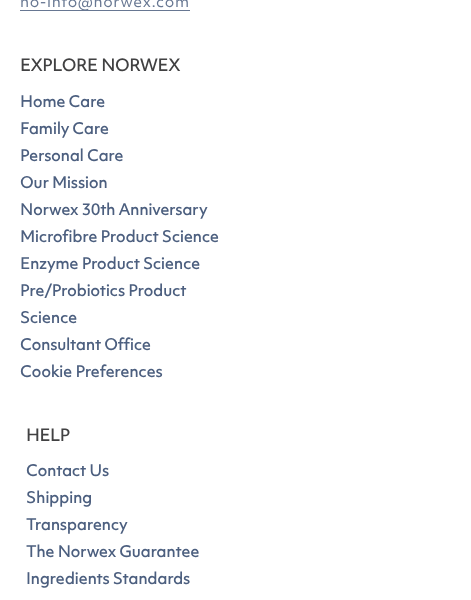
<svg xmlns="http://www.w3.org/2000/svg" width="471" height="600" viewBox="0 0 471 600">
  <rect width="100%" height="100%" fill="#fff"/>
  <path d="M20 10h170v1H20z" fill="#677792"/>
  <text x="20" y="7" font-family="'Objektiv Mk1'" font-size="15" letter-spacing="0.6" fill="#677792">no-info@norwex.com</text>
  <text x="20" y="71" font-family="'Objektiv Mk1'" font-size="16" font-weight="bold" fill="#414142">EXPLORE NORWEX</text>
  <g font-family="'Objektiv Mk1'" font-size="15" font-weight="bold" fill="#4c5f7f">
    <text x="20" y="107">Home Care</text>
    <text x="20" y="134">Family Care</text>
    <text x="20" y="161">Personal Care</text>
    <text x="20" y="188">Our Mission</text>
    <text x="20" y="215">Norwex 30th Anniversary</text>
    <text x="20" y="242">Microfibre Product Science</text>
    <text x="20" y="269">Enzyme Product Science</text>
    <text x="20" y="296">Pre/Probiotics Product</text>
    <text x="20" y="323">Science</text>
    <text x="20" y="350">Consultant Office</text>
    <text x="20" y="377">Cookie Preferences</text>
  </g>
  <text x="26" y="441" font-family="'Objektiv Mk1'" font-size="16" font-weight="bold" fill="#414142">HELP</text>
  <g font-family="'Objektiv Mk1'" font-size="15" font-weight="bold" fill="#4c5f7f">
    <text x="26" y="476">Contact Us</text>
    <text x="26" y="503">Shipping</text>
    <text x="26" y="530">Transparency</text>
    <text x="26" y="557">The Norwex Guarantee</text>
    <text x="26" y="584">Ingredients Standards</text>
  </g>
</svg>
